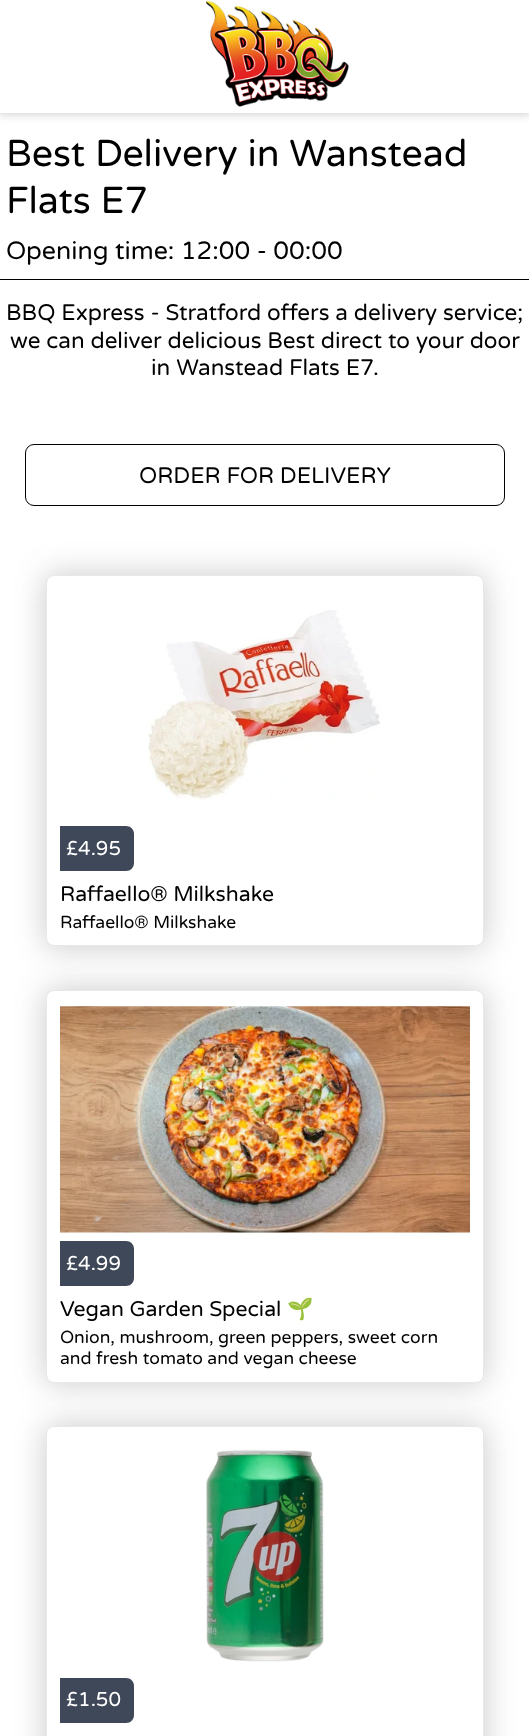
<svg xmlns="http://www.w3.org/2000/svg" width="529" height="1736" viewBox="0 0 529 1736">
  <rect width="100%" height="100%" fill="#fff"/>
  <path d="M-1 -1h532v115H-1z" fill="#35353540" filter="blur(5px)"/>
  <path d="M0 0h529v113H0z" fill="#fff"/>
  <image x="206" y="0" width="143" height="107" href="img/1.png"/>
  <path d="M0 279h529v1H0z" fill="#000"/>
  <rect x="25.5" y="444.5" width="479" height="61" rx="8.5" fill="none" stroke="#000"/>
  <rect x="45" y="574" width="440" height="374" rx="9" fill="#35353540" filter="blur(15.5px)"/>
  <rect x="46.5" y="575.5" width="437" height="370" rx="7.5" fill="#fff" stroke="#e8e8e8"/>
  <image x="148" y="610" width="233" height="191" href="img/2.png"/>
  <path d="M60 826H126C130.5 826 134 829.5 134 834V863C134 867.5 130.5 871 126 871H60Z" fill="#3f4858"/>
  <rect x="45" y="989" width="440" height="395" rx="9" fill="#35353540" filter="blur(15.5px)"/>
  <rect x="46.5" y="990.5" width="437" height="392" rx="7.5" fill="#fff" stroke="#e8e8e8"/>
  <image x="60" y="1006" width="410" height="227" href="img/3.png"/>
  <path d="M60 1241H126C130.5 1241 134 1244.5 134 1249V1278C134 1282.5 130.5 1286 126 1286H60Z" fill="#3f4858"/>
  <rect x="45" y="1425" width="440" height="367" rx="9" fill="#35353540" filter="blur(15.5px)"/>
  <path d="M54 1426H476C480.5 1426 484 1429.5 484 1434V1736H46V1434C46 1429.5 49.5 1426 54 1426Z" fill="#fff"/>
  <rect x="46.5" y="1426.5" width="437" height="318" rx="7.5" fill="none" stroke="#e8e8e8"/>
  <image x="206" y="1449" width="118" height="213" href="img/4.png"/>
  <path d="M60 1678H126C130.5 1678 134 1681.5 134 1686V1715C134 1719.5 130.5 1723 126 1723H60Z" fill="#3f4858"/>
  <g font-family="Varela Round" font-size="37.5" fill="#000">
    <text x="6" y="166">Best Delivery in Wanstead</text>
    <text x="6" y="213">Flats E7</text>
  </g>
  <text x="6" y="259" font-family="Varela Round" font-size="25" fill="#000">Opening time: 12:00 - 00:00</text>
  <g font-family="Varela Round" font-size="22.5" fill="#000">
    <text x="6" y="320">BBQ Express - Stratford offers a delivery service;</text>
    <text x="10" y="348">we can deliver delicious Best direct to your door</text>
    <text x="151" y="375">in Wanstead Flats E7.</text>
    <text x="139" y="483">ORDER FOR DELIVERY</text>
  </g>
  <text x="66" y="855" font-family="Varela Round" font-size="20" fill="#fff">£4.95</text>
  <text x="60" y="901" font-family="Varela Round" font-size="21.25" fill="#000">Raffaello® Milkshake</text>
  <text x="60" y="928" font-family="Varela Round" font-size="17.5" fill="#000">Raffaello® Milkshake</text>
  <text x="66" y="1270" font-family="Varela Round" font-size="20" fill="#fff">£4.99</text>
  <text x="60" y="1316" font-family="Varela Round" font-size="21.25" fill="#000">Vegan Garden Special</text>
  <text x="287" y="1316" font-family="Noto Color Emoji" font-size="21.25" font-weight="bold" fill="#000">🌱</text>
  <g font-family="Varela Round" font-size="17.5" fill="#000">
    <text x="60" y="1343">Onion, mushroom, green peppers, sweet corn</text>
    <text x="60" y="1364">and fresh tomato and vegan cheese</text>
  </g>
  <text x="66" y="1706" font-family="Varela Round" font-size="20" fill="#fff">£1.50</text>
</svg>
